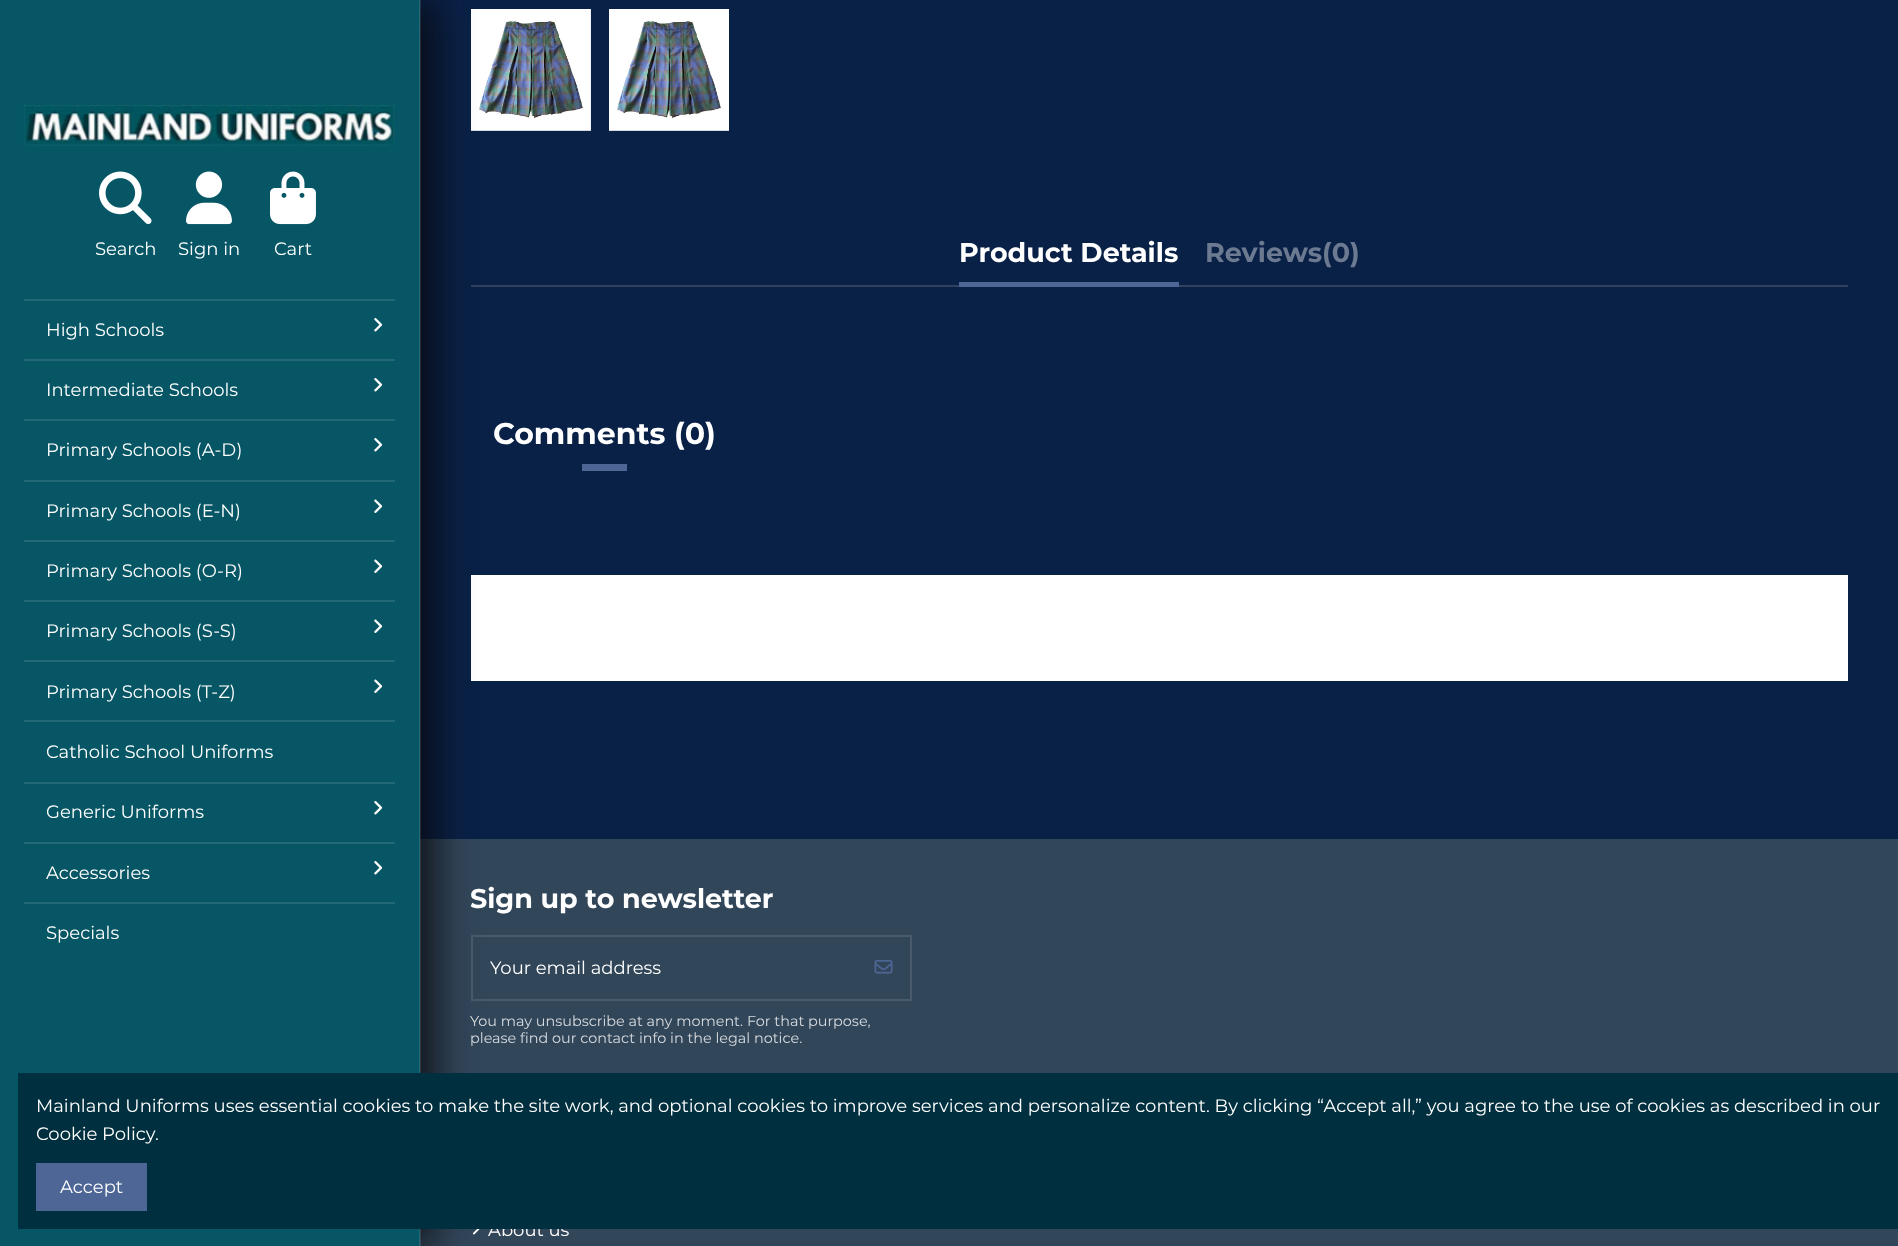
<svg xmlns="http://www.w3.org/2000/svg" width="1898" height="1246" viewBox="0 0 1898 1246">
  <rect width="100%" height="100%" fill="#0a2147"/>
  <image x="471" y="9" width="120" height="122" href="img/7.png"/>
  <path d="M471 285h1377v2H471z" fill="#30415d"/>
  <path d="M471 575h1377v106H471z" fill="#fff"/>
  <path d="M420 839h1478v407H420z" fill="#32465a"/>
  <path d="M472 936h439v64H472z" fill="none" stroke="#495a6c" stroke-width="2"/>
  <image x="472" y="1229" width="8" height="6" href="img/10.png"/>
  <path d="M15 0h420v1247H15z" fill="#07080acf" filter="blur(19.5px)"/>
  <path d="M0 0h420v1246H0z" fill="#065665"/>
  <path d="M419 0h2v1246H419z" fill="#f0f0f01f"/>
  <image x="23" y="105" width="372" height="41" href="img/1.png"/>
  <image x="99" y="171" width="53" height="53" href="img/2.png"/>
  <image x="186" y="171" width="46" height="54" href="img/3.png"/>
  <image x="270" y="171" width="46" height="54" href="img/4.png"/>
  <path d="M24 299h371v2H24z" fill="#226876"/>
  <image x="374" y="318" width="9" height="14" href="img/5.png"/>
  <path d="M24 359h371v2H24z" fill="#226876"/>
  <image x="374" y="378" width="9" height="14" href="img/5.png"/>
  <path d="M24 419h371v2H24z" fill="#226876"/>
  <image x="374" y="438" width="9" height="14" href="img/5.png"/>
  <path d="M24 480h371v2H24z" fill="#226876"/>
  <image x="374" y="499" width="9" height="14" href="img/6.png"/>
  <path d="M24 540h371v2H24z" fill="#226876"/>
  <image x="374" y="559" width="9" height="14" href="img/6.png"/>
  <path d="M24 600h371v2H24z" fill="#226876"/>
  <image x="374" y="619" width="9" height="14" href="img/6.png"/>
  <path d="M24 660h371v2H24z" fill="#226876"/>
  <image x="374" y="679" width="9" height="14" href="img/6.png"/>
  <path d="M24 720h371v2H24z" fill="#226876"/>
  <path d="M24 782h371v2H24z" fill="#226876"/>
  <image x="374" y="801" width="9" height="14" href="img/5.png"/>
  <path d="M24 842h371v2H24z" fill="#226876"/>
  <image x="374" y="861" width="9" height="14" href="img/5.png"/>
  <path d="M24 902h371v2H24z" fill="#226876"/>
  <image x="609" y="9" width="120" height="122" href="img/8.png"/>
  <path d="M959 282h220v5H959z" fill="#4d6696"/>
  <path d="M582 464h45v7H582z" fill="#4d6696"/>
  <image x="874" y="960" width="19" height="14" href="img/9.png"/>
  <g font-family="Montserrat" font-size="18" fill="#fff">
    <text x="95" y="255">Search</text>
    <text x="178" y="255">Sign in</text>
    <text x="274" y="255">Cart</text>
    <text x="46" y="336">High Schools</text>
    <text x="46" y="396">Intermediate Schools</text>
    <text x="46" y="456">Primary Schools (A-D)</text>
    <text x="46" y="517">Primary Schools (E-N)</text>
    <text x="46" y="577">Primary Schools (O-R)</text>
    <text x="46" y="637">Primary Schools (S-S)</text>
    <text x="46" y="698">Primary Schools (T-Z)</text>
    <text x="46" y="758">Catholic School Uniforms</text>
    <text x="46" y="818">Generic Uniforms</text>
    <text x="46" y="879">Accessories</text>
    <text x="46" y="939">Specials</text>
  </g>
  <text x="959" y="262" font-family="Montserrat" font-size="27" font-weight="bold" fill="#fff">Product Details</text>
  <text x="1205" y="262" font-family="Montserrat" font-size="27" font-weight="bold" fill="#6c7a91">Reviews(0)</text>
  <text x="493" y="444" font-family="Montserrat" font-size="30" font-weight="bold" fill="#fff">Comments (0)</text>
  <text x="470" y="908" font-family="Montserrat" font-size="27" font-weight="bold" fill="#fff">Sign up to newsletter</text>
  <text x="490" y="974" font-family="Montserrat" font-size="18" fill="#fff">Your email address</text>
  <g font-family="Montserrat" font-size="14.4" fill="#d6dade">
    <text x="470" y="1026">You may unsubscribe at any moment. For that purpose,</text>
    <text x="470" y="1043">please find our contact info in the legal notice.</text>
  </g>
  <text x="488" y="1236" font-family="Montserrat" font-size="18" fill="#fff">About us</text>
  <path d="M18 1073h1880v156H18z" fill="#00303f"/>
  <g font-family="Montserrat" font-size="18" fill="#fff">
    <text x="36" y="1112">Mainland Uniforms uses essential cookies to make the site work, and optional cookies to improve services and personalize content. By clicking “Accept all,” you agree to the use of cookies as described in our</text>
    <text x="36" y="1140">Cookie Policy.</text>
  </g>
  <path d="M36 1163h111v48H36z" fill="#4d6696"/>
  <text x="60" y="1193" font-family="Montserrat" font-size="18" fill="#fff">Accept</text>
</svg>
